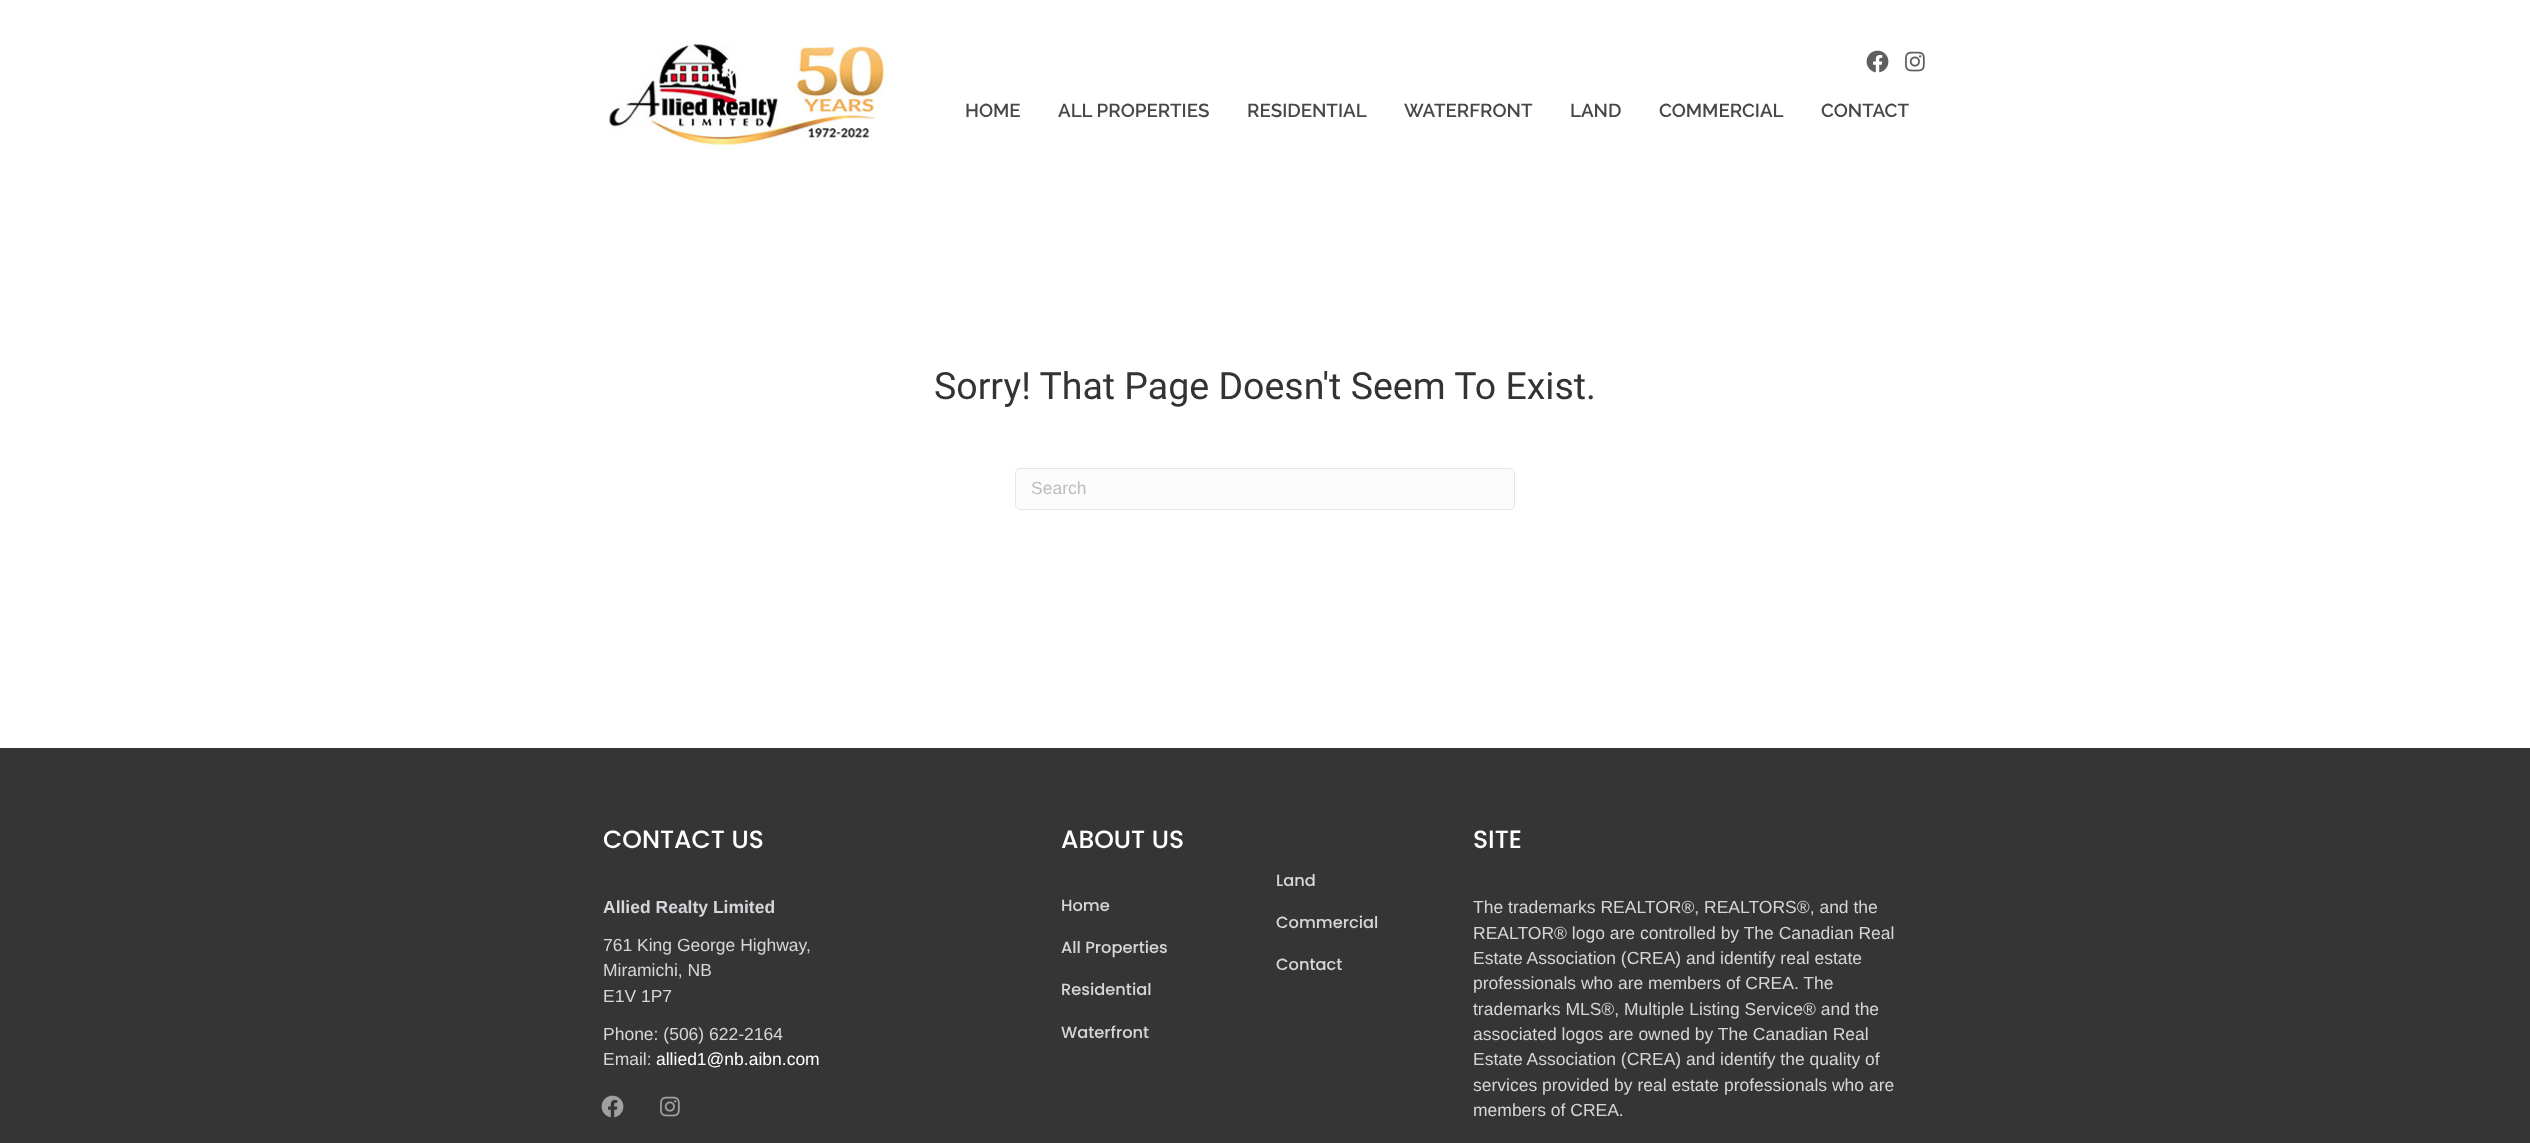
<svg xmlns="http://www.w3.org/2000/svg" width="2530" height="1143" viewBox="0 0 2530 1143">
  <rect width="100%" height="100%" fill="#fff"/>
  <image x="609" y="40" width="280" height="110" href="img/1.png"/>
  <image x="1866" y="50" width="23" height="23" href="img/2.png"/>
  <image x="1905" y="51" width="20" height="21" href="img/3.png"/>
  <rect x="1015.5" y="468.5" width="499" height="41" rx="4.5" fill="#fcfcfc" stroke="#e6e6e6"/>
  <path d="M0 748h2530v395H0z" fill="#353535"/>
  <image x="601" y="1095" width="23" height="23" href="img/4.png"/>
  <image x="660" y="1096" width="20" height="21" href="img/5.png"/>
  <g font-family="Raleway" font-size="18.75" font-weight="100" fill="#474747">
    <text x="965" y="117">HOME</text>
    <text x="1058" y="117">ALL PROPERTIES</text>
    <text x="1247" y="117">RESIDENTIAL</text>
    <text x="1404" y="117">WATERFRONT</text>
    <text x="1570" y="117">LAND</text>
    <text x="1659" y="117">COMMERCIAL</text>
    <text x="1821" y="117">CONTACT</text>
  </g>
  <text x="934" y="399" font-family="Roboto" font-size="37.5" fill="#333">Sorry! That Page Doesn't Seem To Exist.</text>
  <text x="1031" y="494" font-family="Liberation Sans" font-size="17.5" fill="#bdbdbd">Search</text>
  <text x="603" y="848" font-family="Poppins" font-size="25" font-weight="500" fill="#fff">CONTACT US</text>
  <text x="603" y="913" font-family="Liberation Sans" font-size="17.5" font-weight="bold" fill="#d5d6d9">Allied Realty Limited</text>
  <g font-family="Liberation Sans" font-size="17.5" fill="#d5d6d9">
    <text x="603" y="951">761 King George Highway,</text>
    <text x="603" y="976">Miramichi, NB</text>
    <text x="603" y="1002">E1V 1P7</text>
    <text x="603" y="1040">Phone: (506) 622-2164</text>
    <text x="603" y="1065">Email:</text>
  </g>
  <text x="656" y="1065" font-family="Liberation Sans" font-size="17.5" fill="#fff">allied1@nb.aibn.com</text>
  <text x="1061" y="848" font-family="Poppins" font-size="25" font-weight="500" fill="#fff">ABOUT US</text>
  <g font-family="Poppins" font-size="16.25" font-weight="500" fill="#d5d6d9">
    <text x="1276" y="886">Land</text>
    <text x="1061" y="911">Home</text>
    <text x="1276" y="928">Commercial</text>
    <text x="1061" y="953">All Properties</text>
    <text x="1276" y="970">Contact</text>
    <text x="1061" y="995">Residential</text>
    <text x="1061" y="1038">Waterfront</text>
  </g>
  <text x="1473" y="848" font-family="Poppins" font-size="25" font-weight="500" fill="#fff">SITE</text>
  <g font-family="Liberation Sans" font-size="17.5" fill="#d5d6d9">
    <text x="1473" y="913">The trademarks REALTOR®, REALTORS®, and the</text>
    <text x="1473" y="939">REALTOR® logo are controlled by The Canadian Real</text>
    <text x="1473" y="964">Estate Association (CREA) and identify real estate</text>
    <text x="1473" y="989">professionals who are members of CREA. The</text>
    <text x="1473" y="1015">trademarks MLS®, Multiple Listing Service® and the</text>
    <text x="1473" y="1040">associated logos are owned by The Canadian Real</text>
    <text x="1473" y="1065">Estate Association (CREA) and identify the quality of</text>
    <text x="1473" y="1091">services provided by real estate professionals who are</text>
    <text x="1473" y="1116">members of CREA.</text>
  </g>
</svg>
